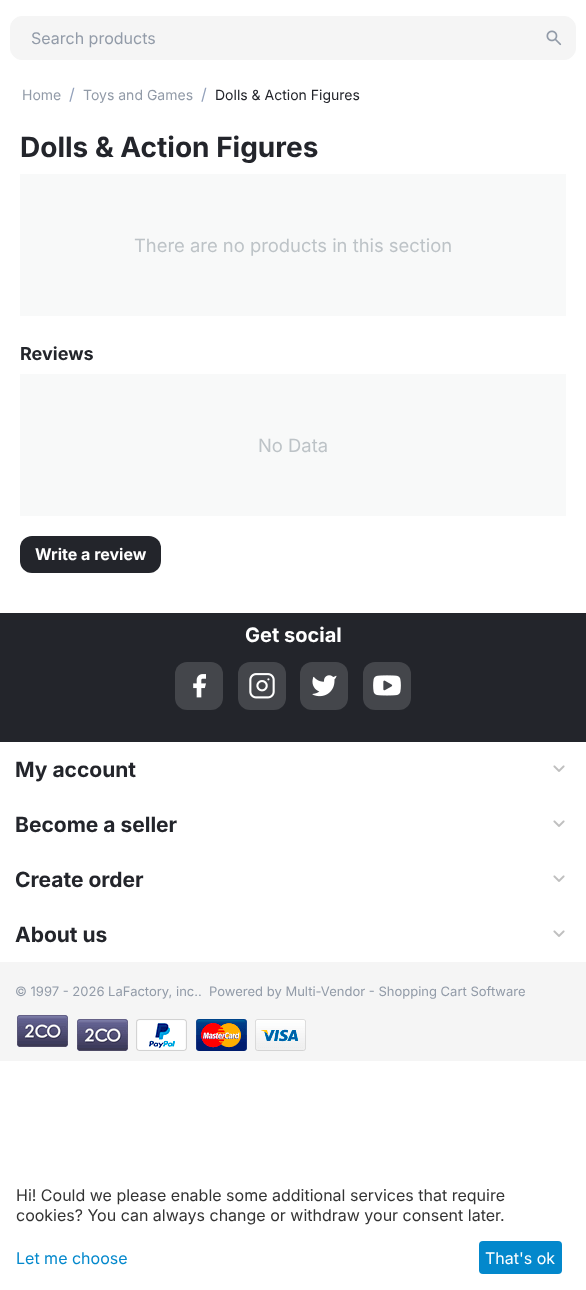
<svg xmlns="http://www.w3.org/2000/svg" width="586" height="1290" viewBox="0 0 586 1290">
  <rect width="100%" height="100%" fill="#fff"/>
  <rect x="10.5" y="16.5" width="565" height="43" rx="11.5" fill="#f5f5f5" stroke="#f5f5f5"/>
  <image x="546" y="30" width="16" height="16" href="img/1.png"/>
  <path d="M20 174h546v142H20z" fill="#f8f9f9"/>
  <path d="M20 374h546v142H20z" fill="#f8f9f9"/>
  <rect x="20" y="536" width="141" height="37" rx="12" fill="#23252b"/>
  <path d="M0 613h586v129H0z" fill="#23252b"/>
  <rect x="175" y="662" width="48" height="48" rx="12" fill="#44464b"/>
  <image x="193" y="674" width="13" height="24" href="img/2.png"/>
  <rect x="238" y="662" width="48" height="48" rx="12" fill="#44464b"/>
  <image x="249" y="673" width="26" height="26" href="img/3.png"/>
  <rect x="300" y="662" width="48" height="48" rx="12" fill="#44464b"/>
  <image x="312" y="675" width="25" height="22" href="img/4.png"/>
  <rect x="363" y="662" width="48" height="48" rx="12" fill="#44464b"/>
  <image x="373" y="675" width="28" height="21" href="img/5.png"/>
  <image x="553" y="765" width="12" height="7" href="img/6.png"/>
  <image x="553" y="820" width="12" height="7" href="img/6.png"/>
  <image x="553" y="875" width="12" height="7" href="img/6.png"/>
  <image x="553" y="930" width="12" height="7" href="img/6.png"/>
  <path d="M0 962h586v99H0z" fill="#f5f5f5"/>
  <image x="17" y="1015" width="51" height="32" href="img/7.png"/>
  <image x="77" y="1019" width="51" height="32" href="img/7.png"/>
  <image x="136" y="1019" width="51" height="32" href="img/8.png"/>
  <image x="196" y="1019" width="51" height="32" href="img/9.png"/>
  <image x="255" y="1019" width="51" height="32" href="img/10.png"/>
  <rect x="479" y="1241" width="83" height="33" rx="4" fill="#0388cc"/>
  <text x="31" y="44" font-family="Inter" font-size="16" fill="#929ba8">Search products</text>
  <text x="22" y="100" font-family="Inter" font-size="14" fill="#929ba8">Home</text>
  <text x="69" y="100" font-family="Inter" font-size="16" fill="#93a1bb">/</text>
  <text x="83" y="100" font-family="Inter" font-size="14" fill="#929ba8">Toys and Games</text>
  <text x="201" y="100" font-family="Inter" font-size="16" fill="#93a1bb">/</text>
  <text x="215" y="100" font-family="Inter" font-size="14" fill="#23252b">Dolls &amp; Action Figures</text>
  <text x="20" y="157" font-family="Inter" font-size="28" font-weight="bold" fill="#23252b">Dolls &amp; Action Figures</text>
  <text x="134" y="252" font-family="Inter" font-size="18.4" fill="#bdc3c7">There are no products in this section</text>
  <text x="20" y="360" font-family="Inter" font-size="18" font-weight="bold" fill="#23252b">Reviews</text>
  <text x="258" y="452" font-family="Inter" font-size="18.4" fill="#bdc3c7">No Data</text>
  <text x="35" y="560" font-family="Inter" font-size="16" font-weight="bold" fill="#fff">Write a review</text>
  <text x="245" y="642" font-family="Inter" font-size="20" font-weight="bold" fill="#fff">Get social</text>
  <g font-family="Inter" font-size="21" font-weight="bold" fill="#23252b">
    <text x="15" y="777">My account</text>
    <text x="15" y="832">Become a seller</text>
    <text x="15" y="887">Create order</text>
    <text x="15" y="942">About us</text>
  </g>
  <text x="15" y="996" font-family="Inter" font-size="13" fill="#929ba8" xml:space="preserve">© 1997 - 2026 LaFactory, inc..  Powered by Multi-Vendor - Shopping Cart Software</text>
  <g font-family="Inter" font-size="16" fill="#333">
    <text x="16" y="1201">Hi! Could we please enable some additional services that require</text>
    <text x="16" y="1221">cookies? You can always change or withdraw your consent later.</text>
  </g>
  <text x="16" y="1264" font-family="Inter" font-size="16" fill="#0388cc">Let me choose</text>
  <text x="485" y="1264" font-family="Inter" font-size="16" fill="#fff">That's ok</text>
</svg>
